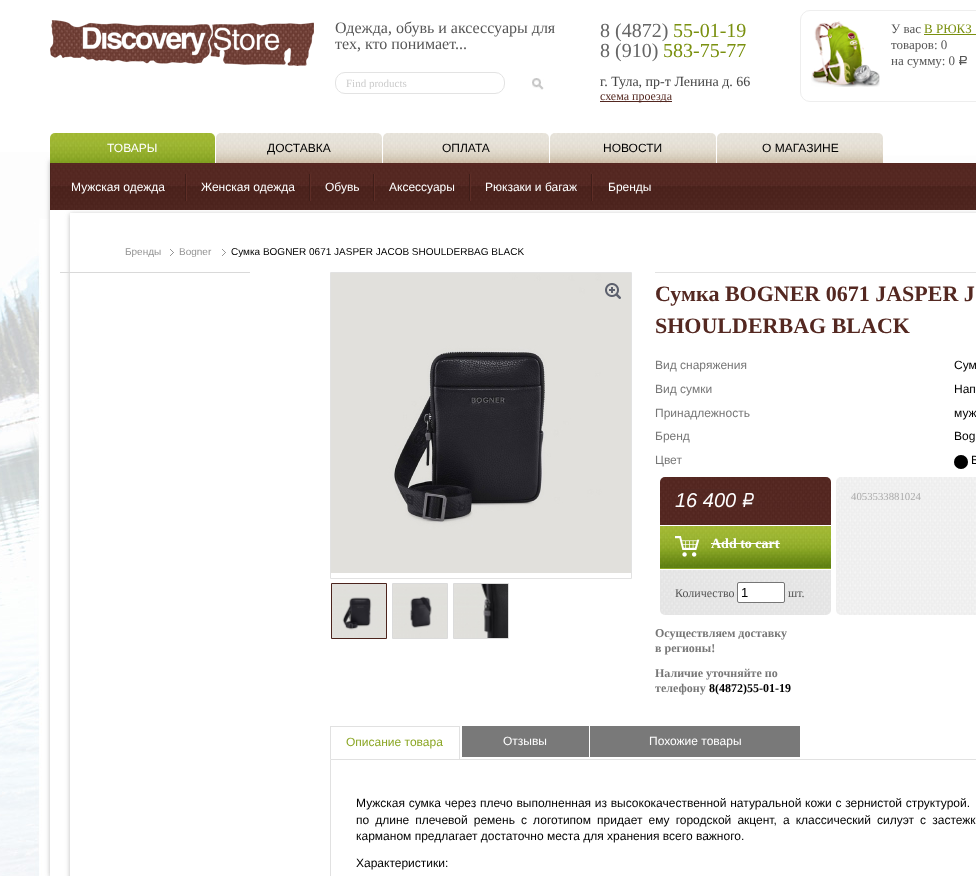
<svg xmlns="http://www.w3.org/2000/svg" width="976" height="876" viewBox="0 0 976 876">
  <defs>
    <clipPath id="clip1"><path d="M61 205H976V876H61ZM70 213H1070V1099H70Z" clip-rule="evenodd"/></clipPath>
    <clipPath id="clip2"><path d="M346 77h111v12H346z"/></clipPath>
  </defs>
  <rect width="100%" height="100%" fill="#fff"/>
  <image x="0" y="152" width="50" height="724" href="img/1.png"/>
  <path d="M50 161h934v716H50z" fill="#bbb" filter="blur(2.5px)"/>
  <path d="M50 157h926v6H50z" fill="#fdfdfd"/>
  <image x="50" y="20" width="264" height="46" href="img/2.png"/>
  <rect x="335.5" y="72.5" width="169" height="21" rx="9.5" fill="none" stroke="#e3e3e3"/>
  <image x="532" y="78" width="12" height="12" href="img/3.png"/>
  <path d="M600 101h72v1H600z" fill="#532720"/>
  <rect x="800.5" y="10.5" width="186" height="91" rx="9.5" fill="none" stroke="#eee"/>
  <image x="811" y="21" width="69" height="66" href="img/4.png"/>
  <path d="M924 34h52v1H924z" fill="#7a900f"/>
  <image x="50" y="133" width="165" height="30" href="img/5.png"/>
  <image x="216" y="133" width="166" height="30" href="img/6.png"/>
  <image x="383" y="133" width="166" height="30" href="img/6.png"/>
  <image x="550" y="133" width="166" height="30" href="img/6.png"/>
  <image x="717" y="133" width="166" height="30" href="img/6.png"/>
  <path d="M50 163h926v1H50z" fill="#542821"/>
  <path d="M50 210h926v666H50z" fill="#fff"/>
  <g clip-path="url(#clip1)">
    <path d="M70 214h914v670H70z" fill="#bbb" filter="blur(2.5px)"/>
  </g>
  <image x="51" y="164" width="925" height="46" href="img/7.png"/>
  <path d="M50 164h1v46H50z" fill="#4d241e"/>
  <path d="M185 174h1v27H185z" fill="#401e19"/>
  <path d="M309 174h1v27H309z" fill="#401e19"/>
  <path d="M186 174h1v27H186z" fill="#5e2d26"/>
  <path d="M373 174h1v27H373z" fill="#401e19"/>
  <path d="M310 174h1v27H310z" fill="#5e2d26"/>
  <path d="M469 174h1v27H469z" fill="#401e19"/>
  <path d="M374 174h1v27H374z" fill="#5e2d26"/>
  <path d="M591 174h1v27H591z" fill="#401e19"/>
  <path d="M470 174h1v27H470z" fill="#5e2d26"/>
  <path d="M592 174h1v27H592z" fill="#5e2d26"/>
  <image x="170" y="249" width="4" height="7" href="img/8.png"/>
  <image x="222" y="249" width="4" height="7" href="img/8.png"/>
  <path d="M330.5 272.5h301v306H330.5z" fill="none" stroke="#e2e2e2"/>
  <image x="331" y="273" width="300" height="300" href="img/9.png"/>
  <image x="605" y="283" width="16" height="16" href="img/10.png"/>
  <path d="M331.5 583.5h55v55H331.5z" fill="none" stroke="#4c241d"/>
  <image x="332" y="584" width="54" height="54" href="img/11.png"/>
  <path d="M392.5 583.5h55v55H392.5z" fill="none" stroke="#dbdbdb"/>
  <image x="393" y="584" width="54" height="54" href="img/12.png"/>
  <path d="M453.5 583.5h55v55H453.5z" fill="none" stroke="#dbdbdb"/>
  <image x="454" y="584" width="54" height="54" href="img/13.png"/>
  <path d="M655 272h321v1H655z" fill="#e2e2e2"/>
  <circle cx="961" cy="462" r="7" fill="#000"/>
  <circle cx="961" cy="462" r="6.5" fill="none" stroke="#00000033"/>
  <image x="660" y="477" width="171" height="48" href="img/14.png"/>
  <path d="M680 489H742V511H675V494C675 491 677 489 680 489Z" fill="#522823"/>
  <image x="675" y="490" width="76" height="21" href="img/15.png"/>
  <path d="M742 493H748C751 493 753 495 753 498V507H742Z" fill="#522823"/>
  <image x="836" y="477" width="140" height="138" href="img/16.png"/>
  <path d="M660 568h171v1H660z" fill="#8ea928"/>
  <image x="660" y="526" width="171" height="42" href="img/17.png"/>
  <image x="675" y="536" width="25" height="21" href="img/18.png"/>
  <path d="M711 543h69v1H711z" fill="#fff"/>
  <image x="660" y="570" width="171" height="45" href="img/19.png"/>
  <rect x="737.5" y="582.5" width="47" height="20" rx="1.5" fill="#fff" stroke="#767676"/>
  <path d="M330 726h130v1H330z" fill="#e1e1e1"/>
  <path d="M459 726h1v33H459z" fill="#e1e1e1"/>
  <path d="M330 726h1v33H330z" fill="#e1e1e1"/>
  <path d="M462 726h127v31H462z" fill="#797979"/>
  <path d="M590 726h210v31H590z" fill="#797979"/>
  <path d="M330.5 759.5h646v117H330.5z" fill="none" stroke="#e1e1e1"/>
  <path d="M60 272h190v1H60z" fill="#d9d9d9"/>
  <g font-family="Liberation Serif" font-size="16" fill="#565656">
    <text x="335" y="33">Одежда, обувь и аксессуары для</text>
    <text x="335" y="49">тех, кто понимает...</text>
  </g>
  <g clip-path="url(#clip2)">
    <text x="346" y="87" font-family="Liberation Serif" font-size="11" fill="#ccc">Find products</text>
  </g>
  <text x="600" y="37" font-family="Liberation Serif" font-size="20" fill="#656565">8 (4872)</text>
  <text x="673" y="37" font-family="Liberation Serif" font-size="20" fill="#7a900f">55-01-19</text>
  <text x="600" y="57" font-family="Liberation Serif" font-size="20" fill="#656565">8 (910)</text>
  <text x="663" y="57" font-family="Liberation Serif" font-size="20" fill="#7a900f">583-75-77</text>
  <text x="600" y="86" font-family="Liberation Serif" font-size="14" fill="#434343">г. Тула, пр-т Ленина д. 66</text>
  <text x="600" y="100" font-family="Liberation Serif" font-size="12" fill="#542821">схема проезда</text>
  <text x="891" y="33" font-family="Liberation Serif" font-size="13" fill="#565656">У вас</text>
  <text x="924" y="33" font-family="Liberation Serif" font-size="13" fill="#7a900f">В РЮКЗ</text>
  <g font-family="Liberation Serif" font-size="13" fill="#565656">
    <text x="891" y="49">товаров: 0</text>
    <text x="891" y="65">на сумму: 0</text>
  </g>
  <text x="958" y="65" font-family="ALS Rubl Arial" font-size="13" fill="#565656">Р</text>
  <text x="107" y="152" font-family="Liberation Sans" font-size="12" fill="#fff">ТОВАРЫ</text>
  <g font-family="Liberation Sans" font-size="12" fill="#000">
    <text x="267" y="152">ДОСТАВКА</text>
    <text x="442" y="152">ОПЛАТА</text>
    <text x="603" y="152">НОВОСТИ</text>
    <text x="762" y="152">О МАГАЗИНЕ</text>
  </g>
  <g font-family="Liberation Sans" font-size="12" fill="#fff">
    <text x="71" y="191">Мужская одежда</text>
    <text x="201" y="191">Женская одежда</text>
    <text x="325" y="191">Обувь</text>
    <text x="389" y="191">Аксессуары</text>
    <text x="485" y="191">Рюкзаки и багаж</text>
    <text x="608" y="191">Бренды</text>
  </g>
  <g font-family="Liberation Sans" font-size="10" fill="#939393">
    <text x="125" y="255">Бренды</text>
    <text x="179" y="255">Bogner</text>
  </g>
  <text x="231" y="255" font-family="Liberation Sans" font-size="10" fill="#000">Сумка BOGNER 0671 JASPER JACOB SHOULDERBAG BLACK</text>
  <g font-family="Liberation Serif" font-size="22" font-weight="bold" fill="#542821">
    <text x="655" y="301">Сумка BOGNER 0671 JASPER J</text>
    <text x="655" y="333">SHOULDERBAG BLACK</text>
  </g>
  <text x="655" y="369" font-family="Liberation Sans" font-size="12" fill="#777">Вид снаряжения</text>
  <text x="954" y="369" font-family="Liberation Sans" font-size="12" fill="#000">Сум</text>
  <text x="655" y="393" font-family="Liberation Sans" font-size="12" fill="#777">Вид сумки</text>
  <text x="954" y="393" font-family="Liberation Sans" font-size="12" fill="#000">Нап</text>
  <text x="655" y="417" font-family="Liberation Sans" font-size="12" fill="#777">Принадлежность</text>
  <text x="954" y="417" font-family="Liberation Sans" font-size="12" fill="#000">муж</text>
  <text x="655" y="440" font-family="Liberation Sans" font-size="12" fill="#777">Бренд</text>
  <text x="954" y="440" font-family="Liberation Sans" font-size="12" fill="#000">Bog</text>
  <text x="655" y="464" font-family="Liberation Sans" font-size="12" fill="#777">Цвет</text>
  <text x="971" y="464" font-family="Liberation Sans" font-size="12" fill="#000">B</text>
  <text x="675" y="507" font-family="Liberation Sans" font-size="20" font-style="italic" fill="#fff">16 400</text>
  <text x="742" y="507" font-family="ALS Rubl Arial" font-size="20" font-style="italic" fill="#fff">Р</text>
  <text x="851" y="500" font-family="Liberation Serif" font-size="10.75" fill="#aaa">4053533881024</text>
  <text x="711" y="548" font-family="Liberation Serif" font-size="14" font-weight="bold" fill="#fff">Add to cart</text>
  <text x="675" y="597" font-family="Liberation Serif" font-size="12" fill="#565656">Количество</text>
  <text x="741" y="597" font-family="Liberation Sans" font-size="13" fill="#000">1</text>
  <text x="788" y="597" font-family="Liberation Serif" font-size="12" fill="#565656">шт.</text>
  <g font-family="Liberation Serif" font-size="12" font-weight="bold" fill="#777">
    <text x="655" y="637">Осуществляем доставку</text>
    <text x="655" y="652">в регионы!</text>
    <text x="655" y="677">Наличие уточняйте по</text>
    <text x="655" y="692">телефону</text>
  </g>
  <text x="709" y="692" font-family="Liberation Serif" font-size="12" font-weight="bold" fill="#000">8(4872)55-01-19</text>
  <text x="346" y="746" font-family="Liberation Sans" font-size="12" fill="#8ca726">Описание товара</text>
  <g font-family="Liberation Sans" font-size="12" fill="#fff">
    <text x="503" y="745">Отзывы</text>
    <text x="649" y="745">Похожие товары</text>
  </g>
  <g font-family="Liberation Sans" font-size="12" fill="#000">
    <text x="356" y="807" word-spacing="0.4">Мужская сумка через плечо выполненная из высококачественной натуральной кожи с зернистой структурой.</text>
    <text x="356" y="824" word-spacing="2.75">по длине плечевой ремень с логотипом придает ему городской акцент, а классический силуэт с застежк</text>
    <text x="356" y="840">карманом предлагает достаточно места для хранения всего важного.</text>
    <text x="356" y="867">Характеристики:</text>
  </g>
</svg>
